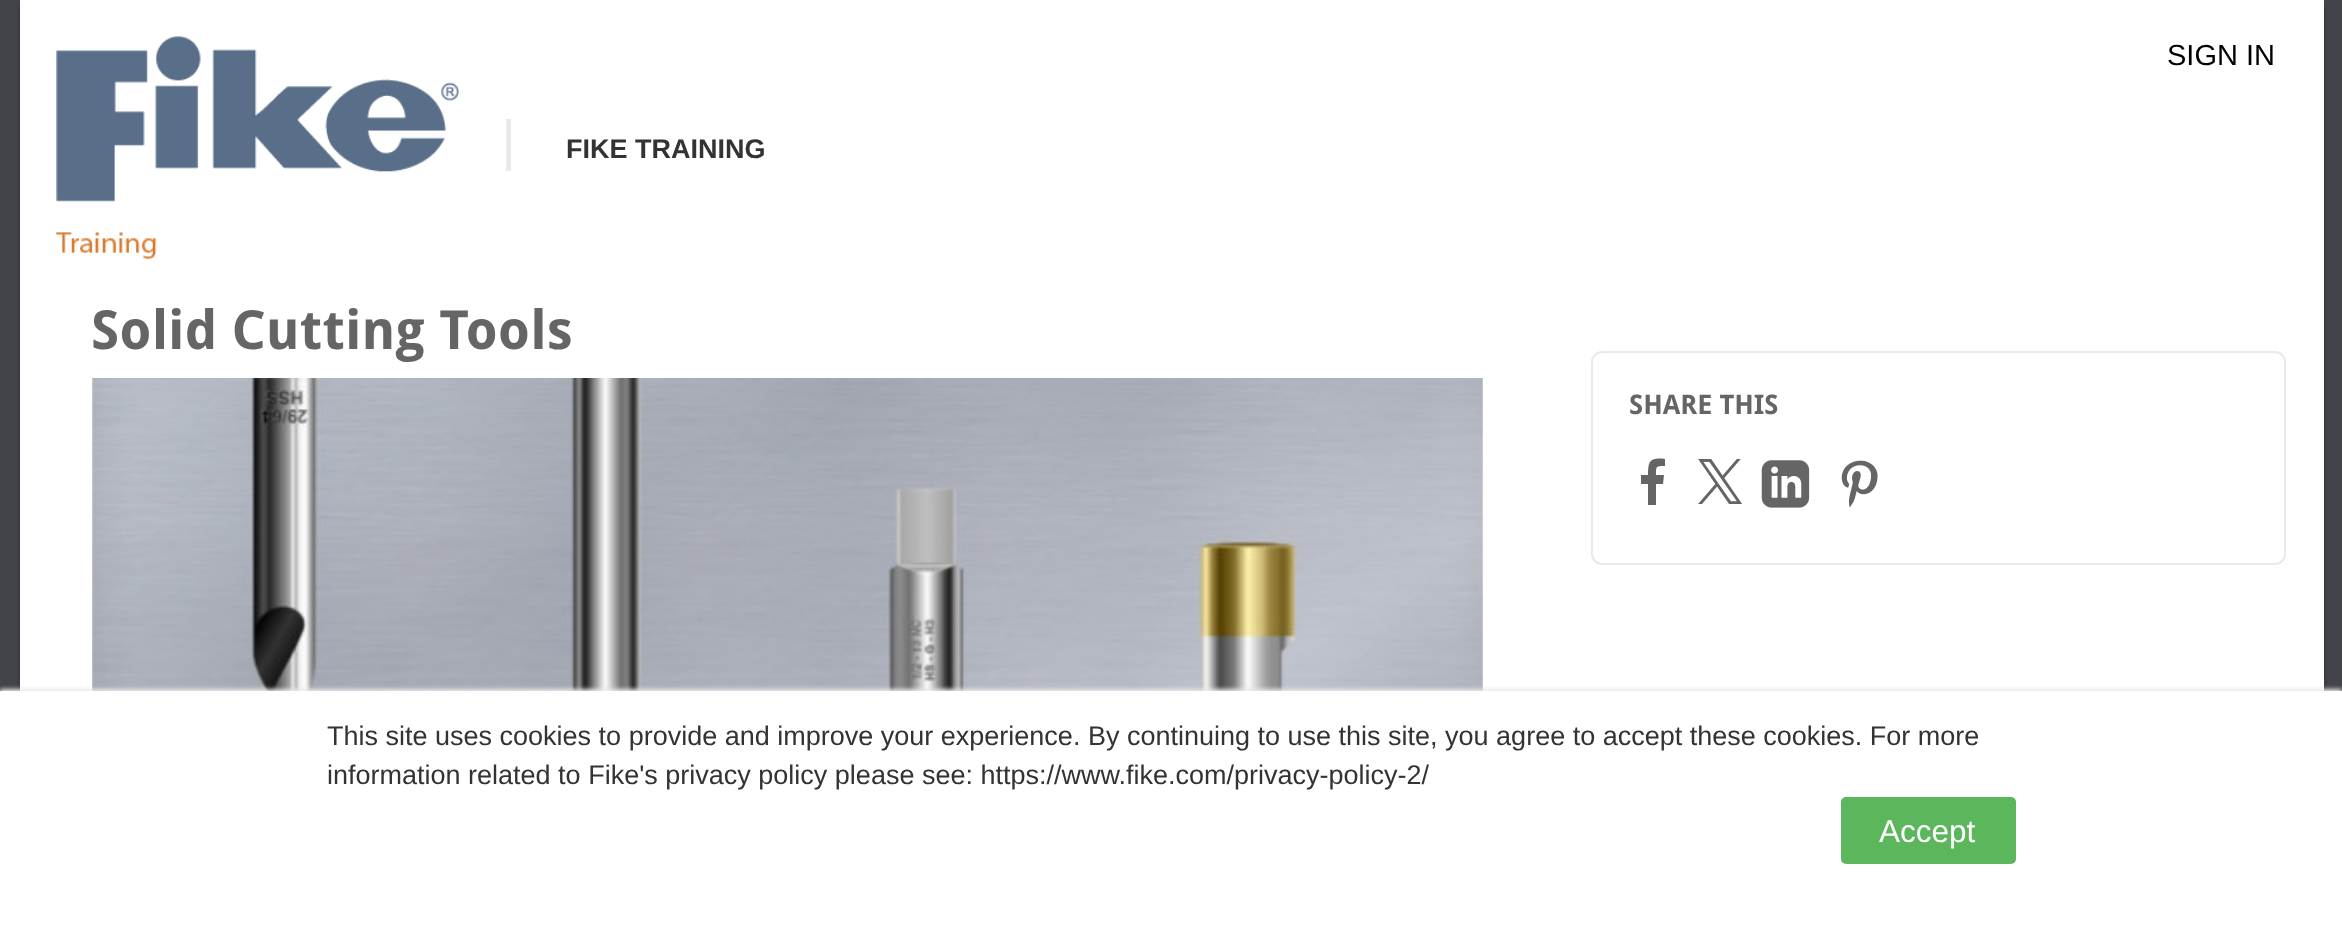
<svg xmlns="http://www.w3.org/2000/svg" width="2342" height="925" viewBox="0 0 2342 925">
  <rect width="100%" height="100%" fill="#43434a"/>
  <path d="M29 5h2295v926H29z" fill="#00000040" filter="blur(2px)"/>
  <path d="M20 5h2295v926H20z" fill="#00000040" filter="blur(2px)"/>
  <path d="M20 0h2304v691H20z" fill="#fff"/>
  <image x="56" y="36" width="403" height="223" href="img/1.png"/>
  <path d="M506 119h5v52H506z" fill="#e9e9e9"/>
  <image x="92" y="378" width="1391" height="313" href="img/2.png"/>
  <rect x="1592" y="352" width="693" height="212" rx="10" fill="none" stroke="#e9e9e9" stroke-width="2"/>
  <path d="M1641 484V475H1648C1648 461 1650 457 1665 459V466C1656 466 1656 466 1656 475H1664L1663 484H1656V505H1648V484Z" fill="#656565"/>
  <image x="1698" y="459" width="44" height="45" href="img/3.png"/>
  <image x="1761" y="460" width="49" height="48" href="img/4.png"/>
  <image x="1841" y="460" width="37" height="47" href="img/5.png"/>
  <path d="M0 689h2342v236H0z" fill="#e9e9e9" filter="blur(2px)"/>
  <path d="M0 691h2342v234H0z" fill="#fff"/>
  <rect x="1841" y="797" width="175" height="67" rx="5" fill="#5bb65c"/>
  <text x="2167" y="65" font-family="Liberation Sans" font-size="29" fill="#000">SIGN IN</text>
  <text x="566" y="158" font-family="Liberation Sans" font-size="27" font-weight="bold" fill="#333">FIKE TRAINING</text>
  <text x="91" y="349" font-family="Droid Sans" font-size="54" font-weight="bold" fill="#656565">Solid Cutting Tools</text>
  <text x="1629" y="414" font-family="Droid Sans" font-size="27" font-weight="bold" fill="#656565">SHARE THIS</text>
  <g font-family="Liberation Sans" font-size="27" fill="#333">
    <text x="327" y="745">This site uses cookies to provide and improve your experience. By continuing to use this site, you agree to accept these cookies. For more</text>
    <text x="327" y="784">information related to Fike's privacy policy please see: https://www.fike.com/privacy-policy-2/</text>
  </g>
  <text x="1879" y="842" font-family="Liberation Sans" font-size="31.5" fill="#fff">Accept</text>
</svg>
